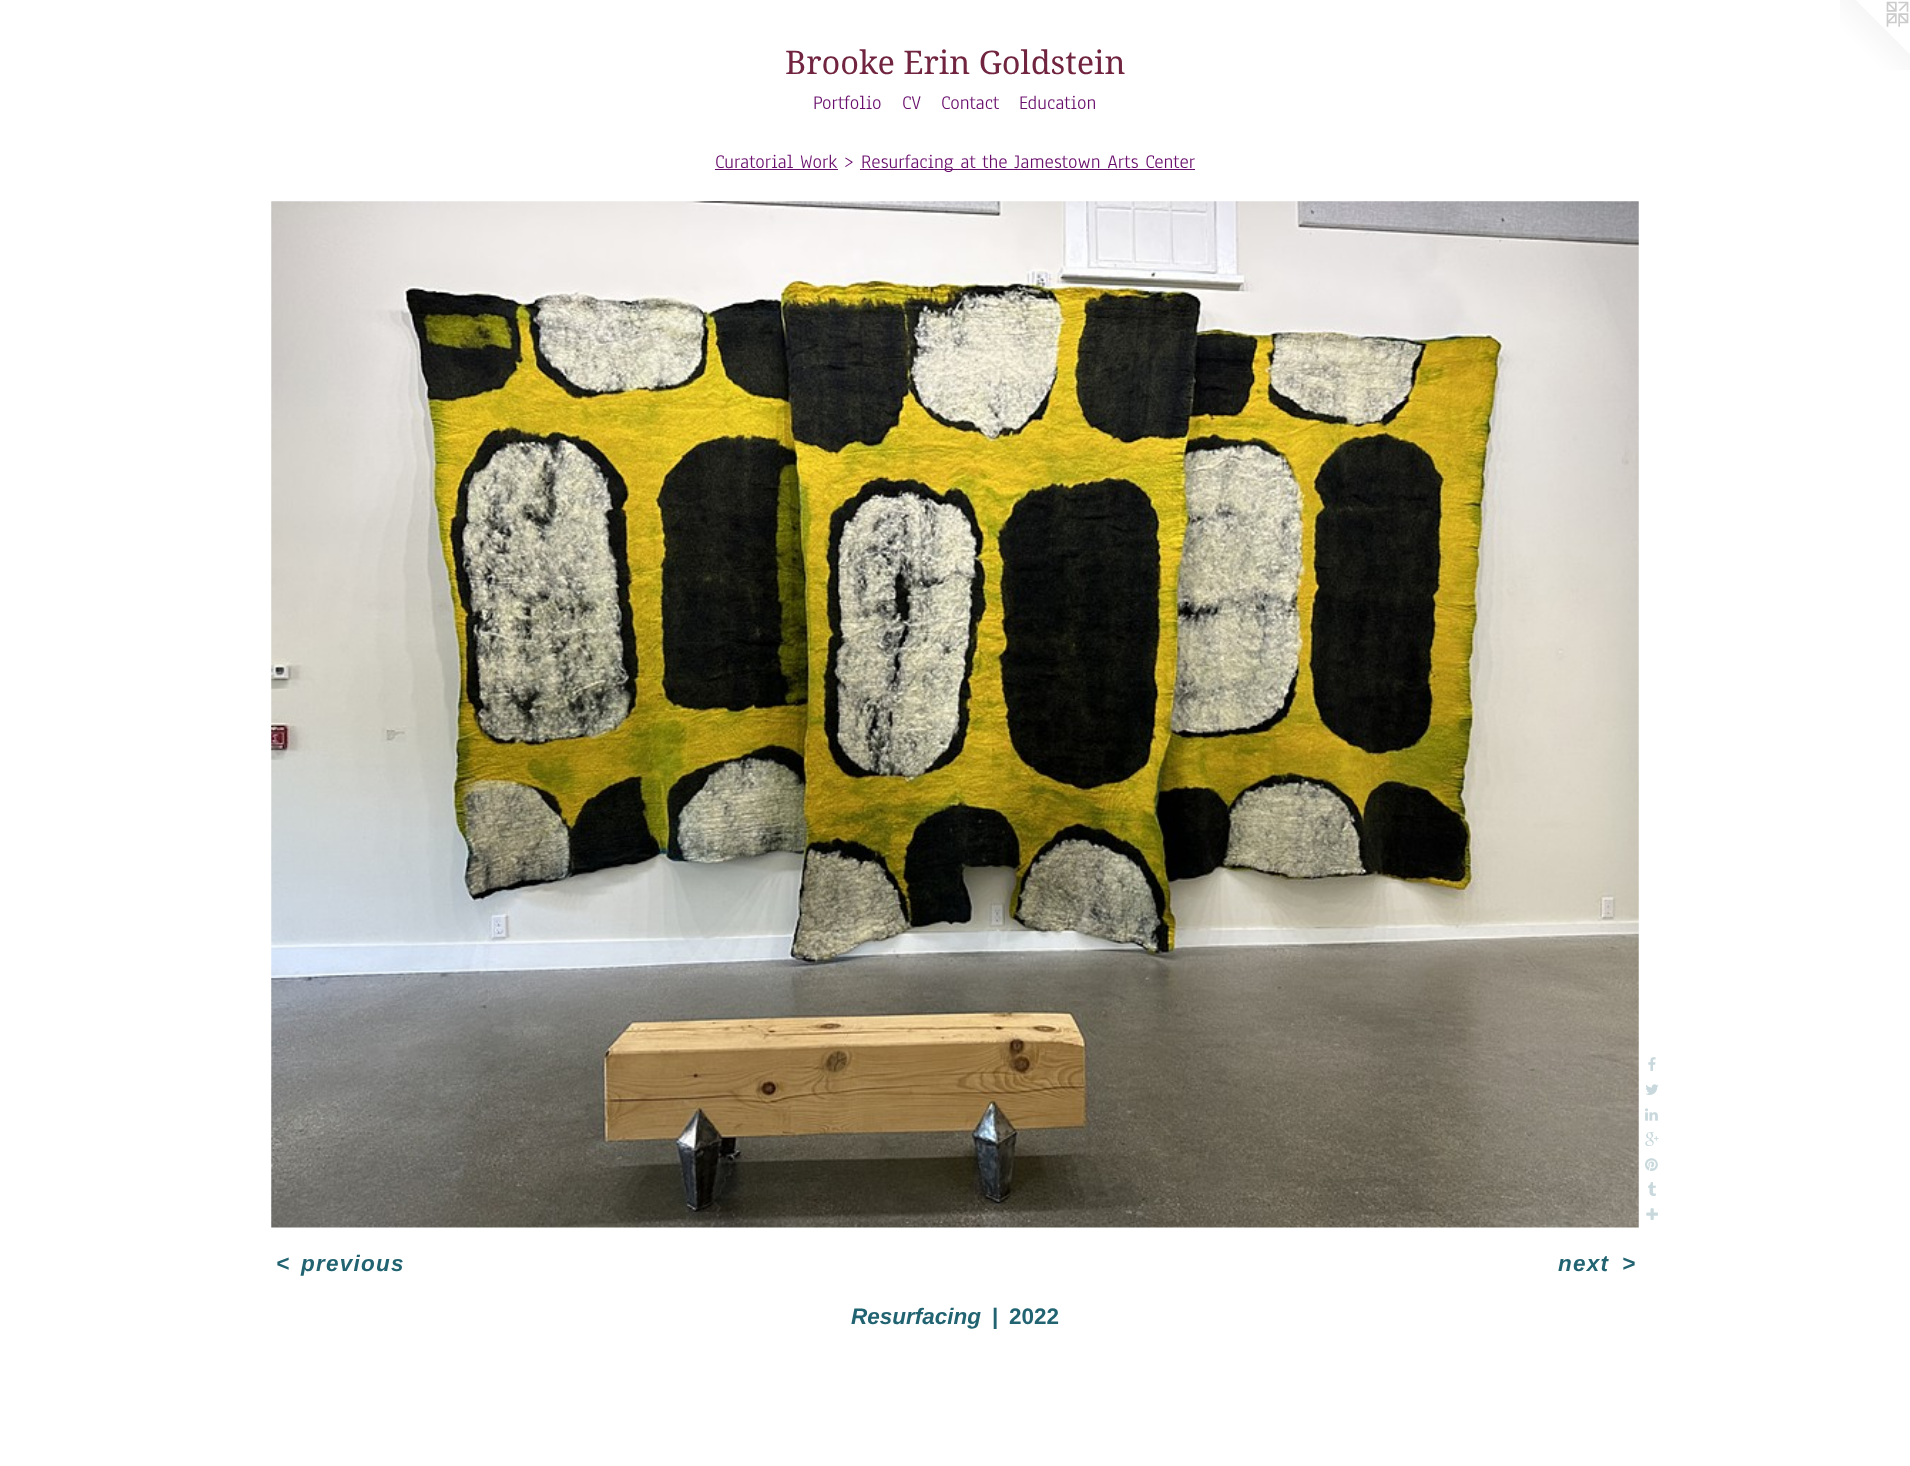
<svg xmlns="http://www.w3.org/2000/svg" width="1910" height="1466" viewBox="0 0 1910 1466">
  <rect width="100%" height="100%" fill="#fff"/>
  <image x="1840" y="0" width="70" height="70" href="img/1.png"/>
  <path d="M715 169h123v1H715z" fill="#690e6c"/>
  <path d="M860 169h335v1H860z" fill="#690e6c"/>
  <image x="271" y="201" width="1368" height="1027" href="img/2.png"/>
  <image x="1648" y="1057" width="8" height="14" href="img/3.png"/>
  <image x="1645" y="1084" width="14" height="11" href="img/4.png"/>
  <image x="1645" y="1108" width="13" height="13" href="img/5.png"/>
  <image x="1645" y="1132" width="14" height="14" href="img/6.png"/>
  <image x="1645" y="1158" width="13" height="13" href="img/7.png"/>
  <image x="1648" y="1182" width="8" height="14" href="img/8.png"/>
  <image x="1646" y="1208" width="12" height="12" href="img/9.png"/>
  <text x="785" y="74" font-family="Droid Serif" font-size="32.5" fill="#70243f">Brooke Erin Goldstein</text>
  <g font-family="Anaheim" font-size="20" fill="#690e6c">
    <text x="813" y="109">Portfolio</text>
    <text x="902" y="109">CV</text>
    <text x="941" y="109">Contact</text>
    <text x="1019" y="109">Education</text>
    <text x="715" y="168">Curatorial Work &gt;</text>
    <text x="861" y="168">Resurfacing at the Jamestown Arts Center</text>
  </g>
  <g font-family="Liberation Sans" font-size="22.5" font-weight="bold" font-style="italic" letter-spacing="1.25" fill="#226372">
    <text x="276" y="1271">&lt;</text>
    <text x="301" y="1271">previous</text>
    <text x="1558" y="1271">next</text>
    <text x="1622" y="1271">&gt;</text>
  </g>
  <text x="851" y="1324" font-family="Liberation Sans" font-size="22.5" font-weight="bold" font-style="italic" fill="#226372">Resurfacing</text>
  <g font-family="Liberation Sans" font-size="22.5" font-weight="bold" fill="#226372">
    <text x="992" y="1324">|</text>
    <text x="1009" y="1324">2022</text>
  </g>
</svg>
